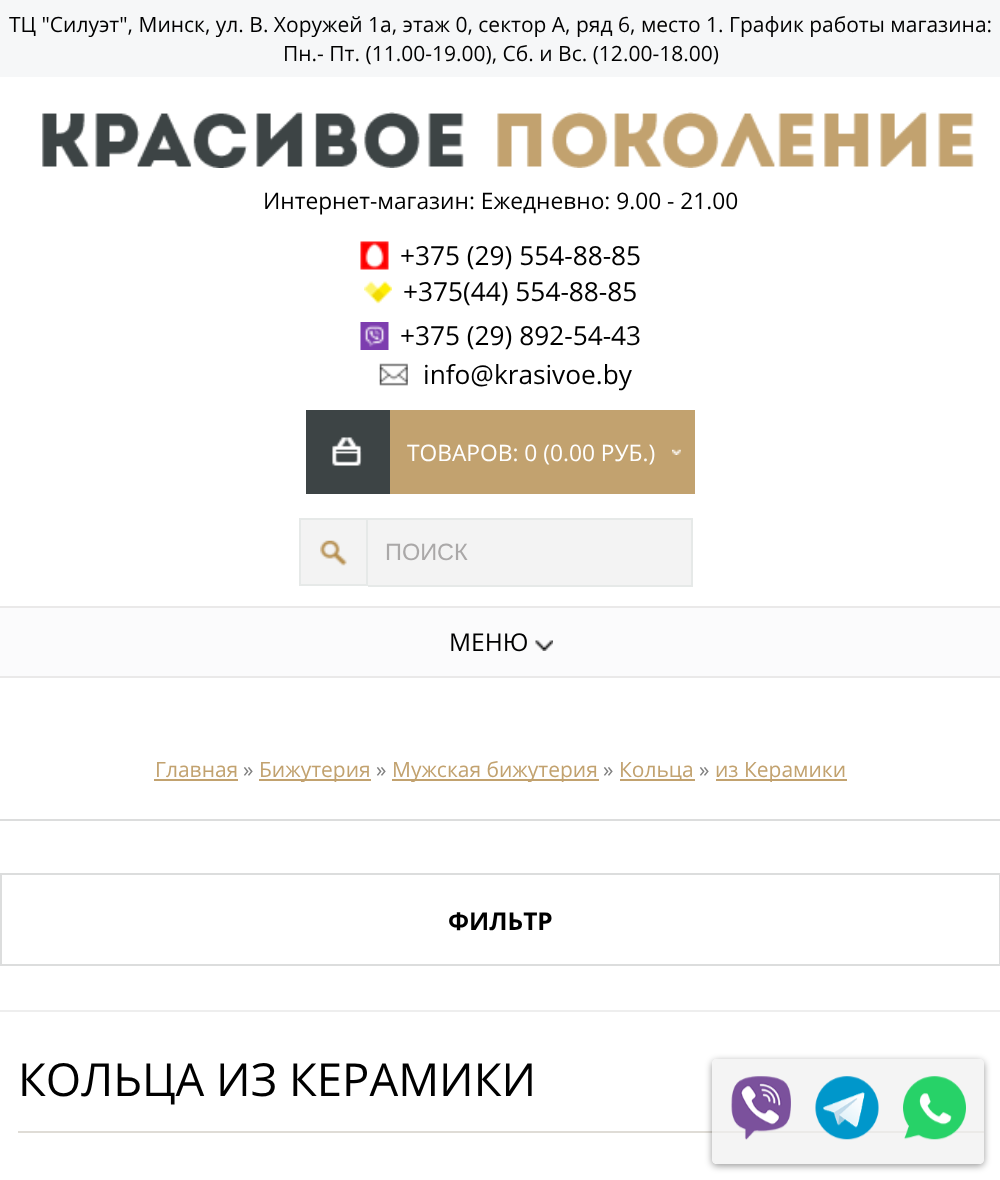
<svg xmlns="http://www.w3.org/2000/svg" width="1000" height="1180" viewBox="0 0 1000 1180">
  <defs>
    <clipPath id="clip1"><path d="M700 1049H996V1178H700ZM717 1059H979C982 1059 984 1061 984 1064V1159C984 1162 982 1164 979 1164H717C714 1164 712 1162 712 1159V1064C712 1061 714 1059 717 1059Z" clip-rule="evenodd"/></clipPath>
  </defs>
  <rect width="100%" height="100%" fill="#fff"/>
  <path d="M0 0h1000v77H0z" fill="#f6f7f8"/>
  <image x="42" y="112" width="932" height="56" href="img/1.png"/>
  <image x="360" y="241" width="29" height="29" href="img/2.png"/>
  <image x="364" y="281" width="28" height="23" href="img/3.png"/>
  <image x="360" y="322" width="29" height="28" href="img/4.png"/>
  <image x="379" y="363" width="29" height="23" href="img/5.png"/>
  <path d="M306 410h84v84H306z" fill="#3d4445"/>
  <image x="332" y="437" width="30" height="29" href="img/6.png"/>
  <path d="M390 410h305v84H390z" fill="#c2a26f"/>
  <image x="672" y="449" width="9" height="6" href="img/7.png"/>
  <path d="M301 520h65v64H301z" fill="#f3f3f3"/>
  <image x="320" y="540" width="27" height="26" href="img/8.png"/>
  <path d="M300 519h67v66H300z" fill="none" stroke="#e6e9e8" stroke-width="2"/>
  <path d="M368 520h323v65H368z" fill="#f3f3f3"/>
  <path d="M368 518h325v2H368z" fill="#e6e9e8"/>
  <path d="M691 518h2v68H691z" fill="#e6e9e8"/>
  <path d="M368 585h325v2H368z" fill="#e6e9e8"/>
  <path d="M0 608h1000v68H0z" fill="#fbfbfc"/>
  <path d="M0 606h1000v2H0z" fill="#eae9e9"/>
  <path d="M0 676h1000v2H0z" fill="#eae9e9"/>
  <image x="535" y="640" width="18" height="11" href="img/9.png"/>
  <path d="M0 819h1000v2H0z" fill="#dcdddd"/>
  <path d="M154 779h84v2H154z" fill="#c2a26f"/>
  <path d="M259 779h112v2H259z" fill="#c2a26f"/>
  <path d="M392 779h207v2H392z" fill="#c2a26f"/>
  <path d="M620 779h75v2H620z" fill="#c2a26f"/>
  <path d="M716 779h131v2H716z" fill="#c2a26f"/>
  <path d="M0 1010h1000v2H0z" fill="#eee"/>
  <path d="M1 874h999v91H1z" fill="none" stroke="#dcdddd" stroke-width="2"/>
  <path d="M18 1131h966v2H18z" fill="#dfdcd6"/>
  <g clip-path="url(#clip1)">
    <rect x="712" y="1061" width="272" height="105" rx="5" fill="#00000066" filter="blur(3.5px)"/>
  </g>
  <rect x="712" y="1059" width="272" height="105" rx="5" fill="#f0f0f0b3"/>
  <image x="731" y="1076" width="60" height="64" href="img/10.png"/>
  <image x="815" y="1076" width="64" height="64" href="img/11.png"/>
  <image x="903" y="1076" width="63" height="64" href="img/12.png"/>
  <g font-family="Open Sans" font-size="21" fill="#000">
    <text x="9" y="32">ТЦ "Силуэт", Минск, ул. В. Хоружей 1а, этаж 0, сектор А, ряд 6, место 1. График работы магазина:</text>
    <text x="283" y="61">Пн.- Пт. (11.00-19.00), Сб. и Вс. (12.00-18.00)</text>
  </g>
  <text x="263" y="209" font-family="Open Sans" font-size="22.75" fill="#000">Интернет-магазин: Ежедневно: 9.00 - 21.00</text>
  <g font-family="Open Sans" font-size="26.25" fill="#000">
    <text x="400" y="265">+375 (29) 554-88-85</text>
    <text x="403" y="301">+375(44) 554-88-85</text>
    <text x="400" y="345">+375 (29) 892-54-43</text>
    <text x="423" y="384">info@krasivoe.by</text>
  </g>
  <text x="407" y="461" font-family="Open Sans" font-size="22.75" fill="#fff">ТОВАРОВ: 0 (0.00 РУБ.)</text>
  <text x="385" y="560" font-family="Liberation Sans" font-size="23.5" fill="#aaa8a8">ПОИСК</text>
  <text x="449" y="651" font-family="Open Sans" font-size="24.5" fill="#000">МЕНЮ</text>
  <text x="155" y="777" font-family="Open Sans" font-size="21" fill="#c2a26f">Главная</text>
  <text x="243" y="777" font-family="Open Sans" font-size="21" fill="#818181">»</text>
  <text x="259" y="777" font-family="Open Sans" font-size="21" fill="#c2a26f">Бижутерия</text>
  <text x="376" y="777" font-family="Open Sans" font-size="21" fill="#818181">»</text>
  <text x="392" y="777" font-family="Open Sans" font-size="21" fill="#c2a26f">Мужская бижутерия</text>
  <text x="603" y="777" font-family="Open Sans" font-size="21" fill="#818181">»</text>
  <text x="619" y="777" font-family="Open Sans" font-size="21" fill="#c2a26f">Кольца</text>
  <text x="699" y="777" font-family="Open Sans" font-size="21" fill="#818181">»</text>
  <text x="715" y="777" font-family="Open Sans" font-size="21" fill="#c2a26f">из Керамики</text>
  <text x="448" y="930" font-family="Open Sans" font-size="24.5" font-weight="bold" fill="#000">ФИЛЬТР</text>
  <text x="18" y="1096" font-family="Open Sans" font-size="45.5" fill="#000">КОЛЬЦА ИЗ КЕРАМИКИ</text>
</svg>
